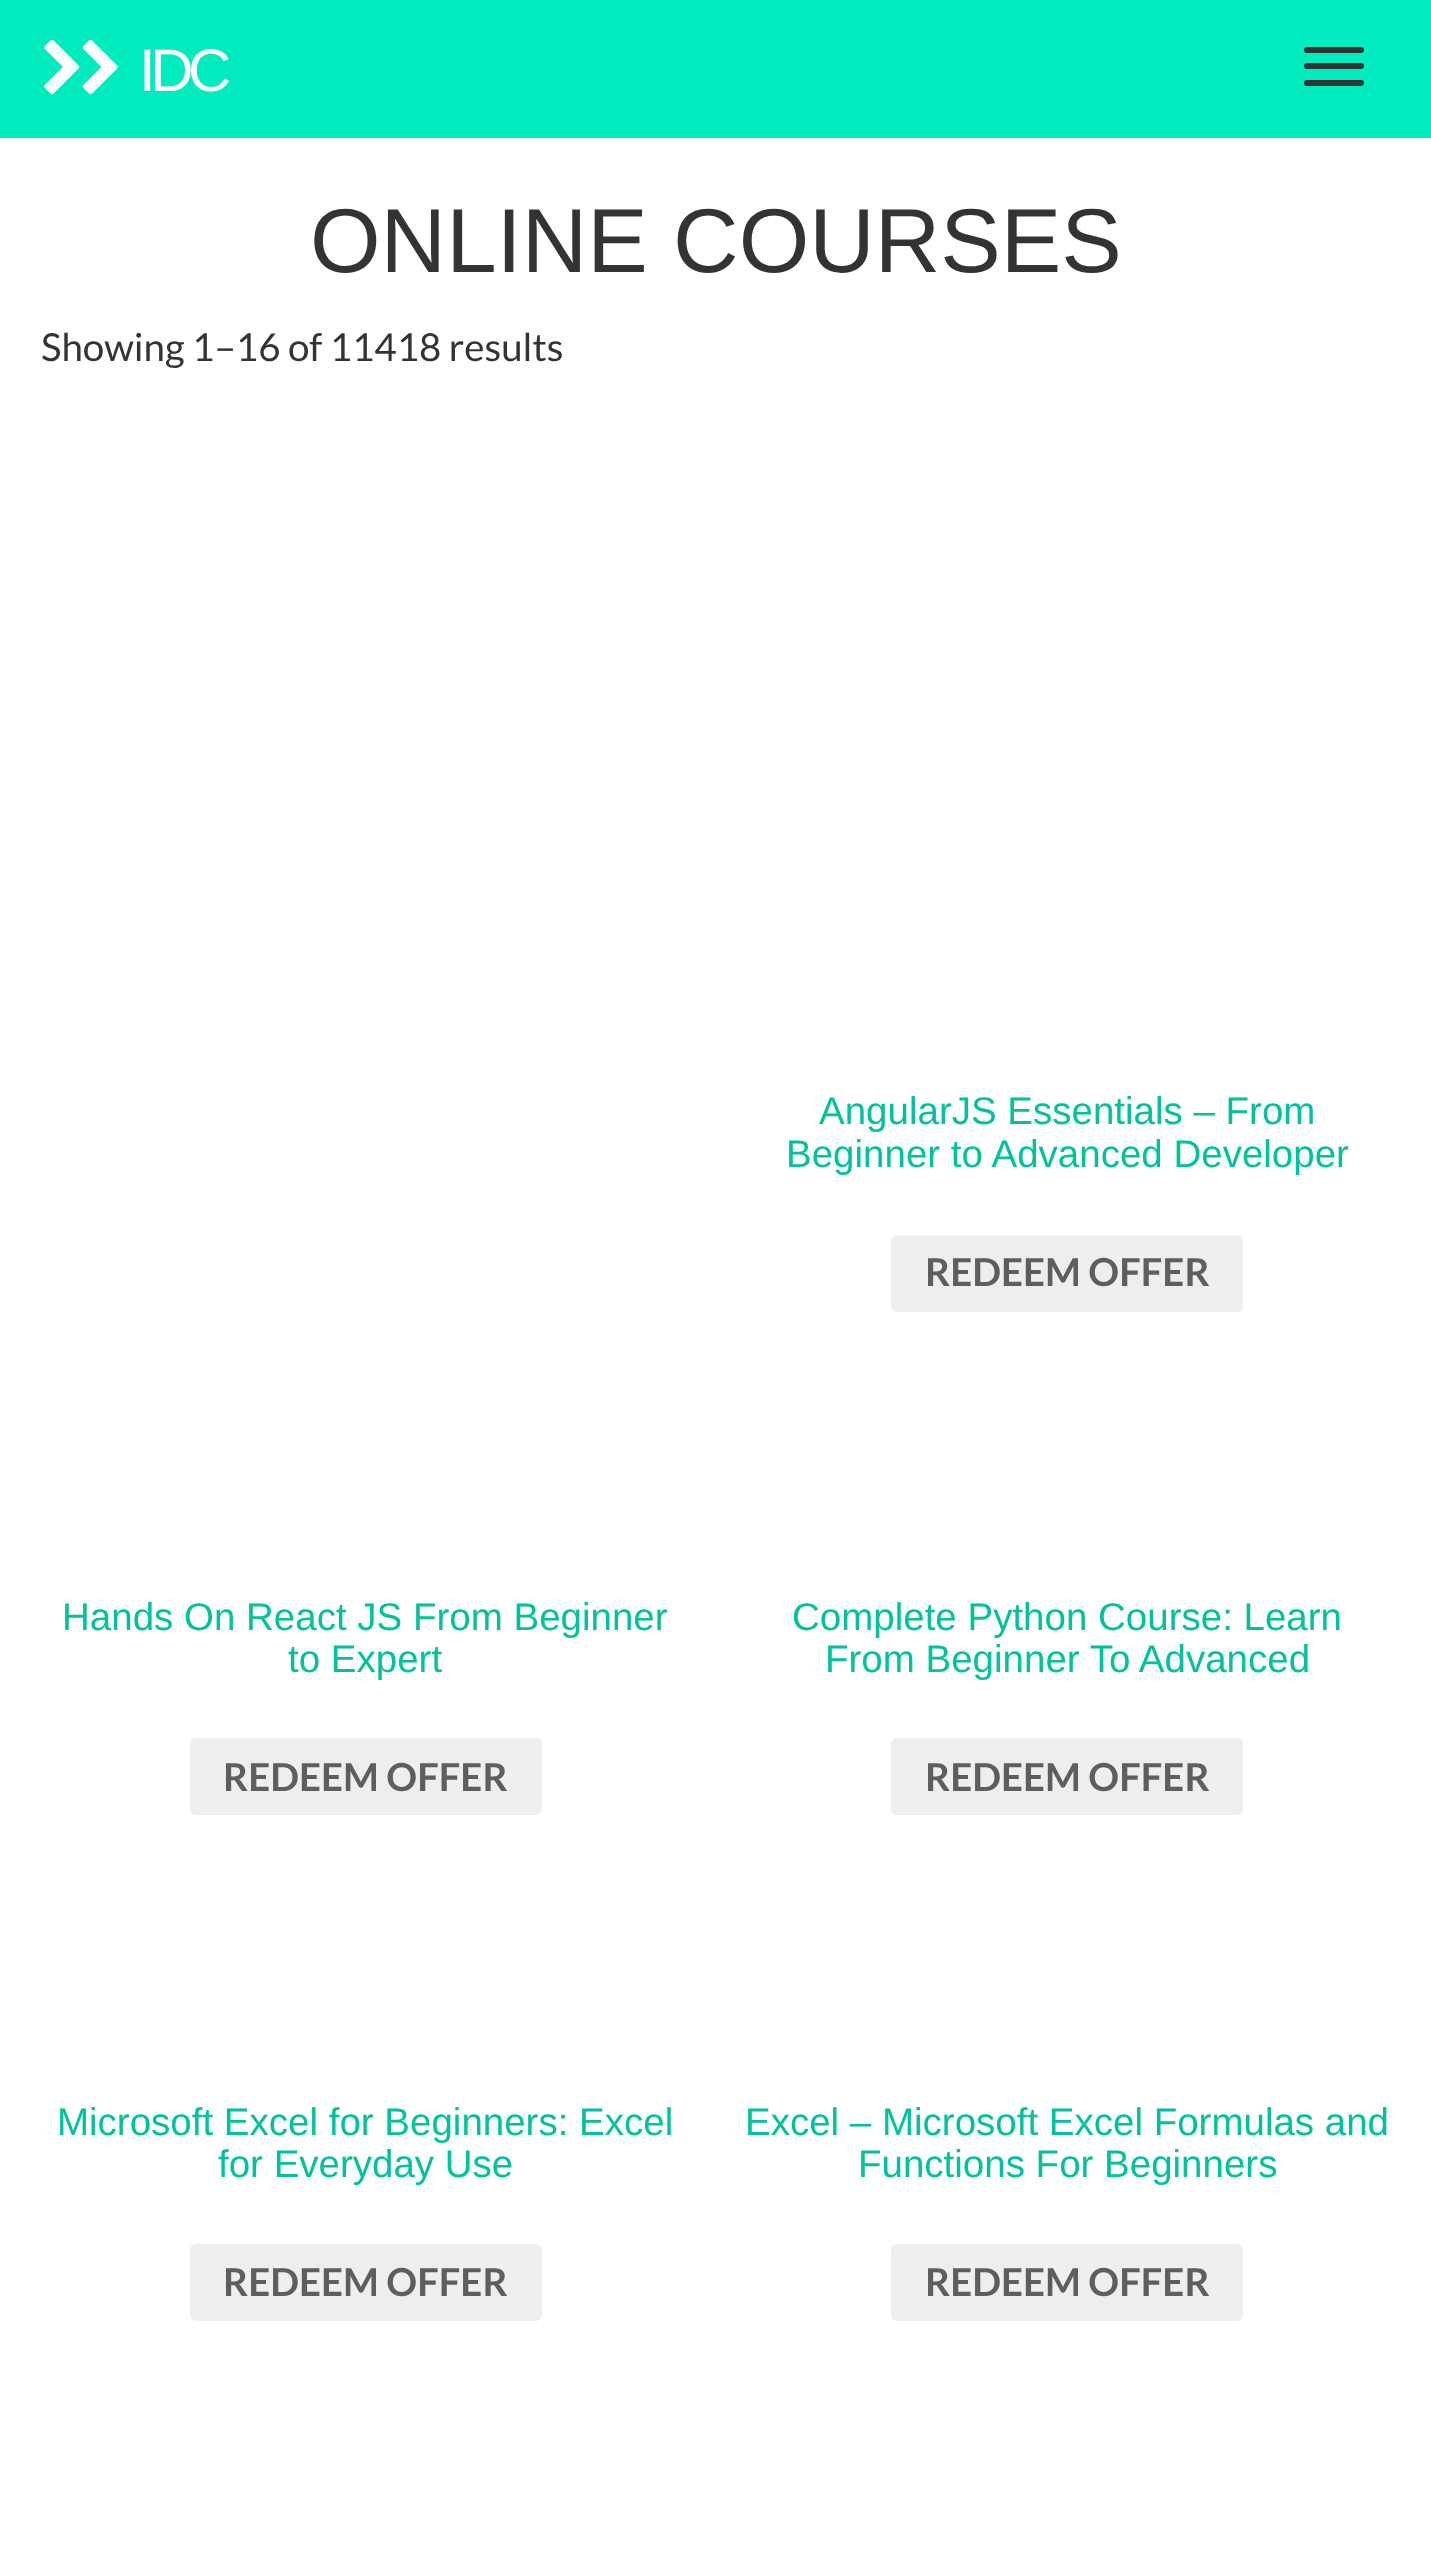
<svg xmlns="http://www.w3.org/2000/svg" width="1431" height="2574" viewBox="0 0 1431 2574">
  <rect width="100%" height="100%" fill="#fff"/>
  <path d="M0 0h1431v138H0z" fill="#00ebbe"/>
  <image x="44" y="39" width="36" height="56" href="img/1.png"/>
  <image x="82" y="39" width="36" height="56" href="img/2.png"/>
  <rect x="1304" y="47" width="60" height="6" rx="3" fill="#333"/>
  <rect x="1304" y="63" width="60" height="6" rx="3" fill="#333"/>
  <rect x="1304" y="80" width="60" height="6" rx="3" fill="#333"/>
  <rect x="891" y="1235" width="352" height="77" rx="6" fill="#eee"/>
  <rect x="190" y="1738" width="352" height="77" rx="6" fill="#eee"/>
  <rect x="891" y="1738" width="352" height="77" rx="6" fill="#eee"/>
  <rect x="190" y="2244" width="352" height="77" rx="6" fill="#eee"/>
  <rect x="891" y="2244" width="352" height="77" rx="6" fill="#eee"/>
  <text x="139" y="91" font-family="Liberation Sans" font-size="60" letter-spacing="-5.5" fill="#fff">IDC</text>
  <text x="310" y="272" font-family="Liberation Sans" font-size="90.75" fill="#333">ONLINE COURSES</text>
  <text x="41" y="361" font-family="Lato" font-size="38.5" fill="#333">Showing 1–16 of 11418 results</text>
  <g font-family="Liberation Sans" font-size="38.5" fill="#02c29d">
    <text x="819" y="1124">AngularJS Essentials – From</text>
    <text x="786" y="1167">Beginner to Advanced Developer</text>
  </g>
  <text x="925" y="1286" font-family="Lato" font-size="38.5" font-weight="bold" fill="#5e5e5e">REDEEM OFFER</text>
  <g font-family="Liberation Sans" font-size="38.5" fill="#02c29d">
    <text x="62" y="1630">Hands On React JS From Beginner</text>
    <text x="288" y="1672">to Expert</text>
  </g>
  <text x="223" y="1791" font-family="Lato" font-size="38.5" font-weight="bold" fill="#5e5e5e">REDEEM OFFER</text>
  <g font-family="Liberation Sans" font-size="38.5" fill="#02c29d">
    <text x="792" y="1630">Complete Python Course: Learn</text>
    <text x="825" y="1672">From Beginner To Advanced</text>
  </g>
  <text x="925" y="1791" font-family="Lato" font-size="38.5" font-weight="bold" fill="#5e5e5e">REDEEM OFFER</text>
  <g font-family="Liberation Sans" font-size="38.5" fill="#02c29d">
    <text x="57" y="2135">Microsoft Excel for Beginners: Excel</text>
    <text x="218" y="2177">for Everyday Use</text>
  </g>
  <text x="223" y="2296" font-family="Lato" font-size="38.5" font-weight="bold" fill="#5e5e5e">REDEEM OFFER</text>
  <g font-family="Liberation Sans" font-size="38.5" fill="#02c29d">
    <text x="745" y="2135">Excel – Microsoft Excel Formulas and</text>
    <text x="858" y="2177">Functions For Beginners</text>
  </g>
  <text x="925" y="2296" font-family="Lato" font-size="38.5" font-weight="bold" fill="#5e5e5e">REDEEM OFFER</text>
</svg>
